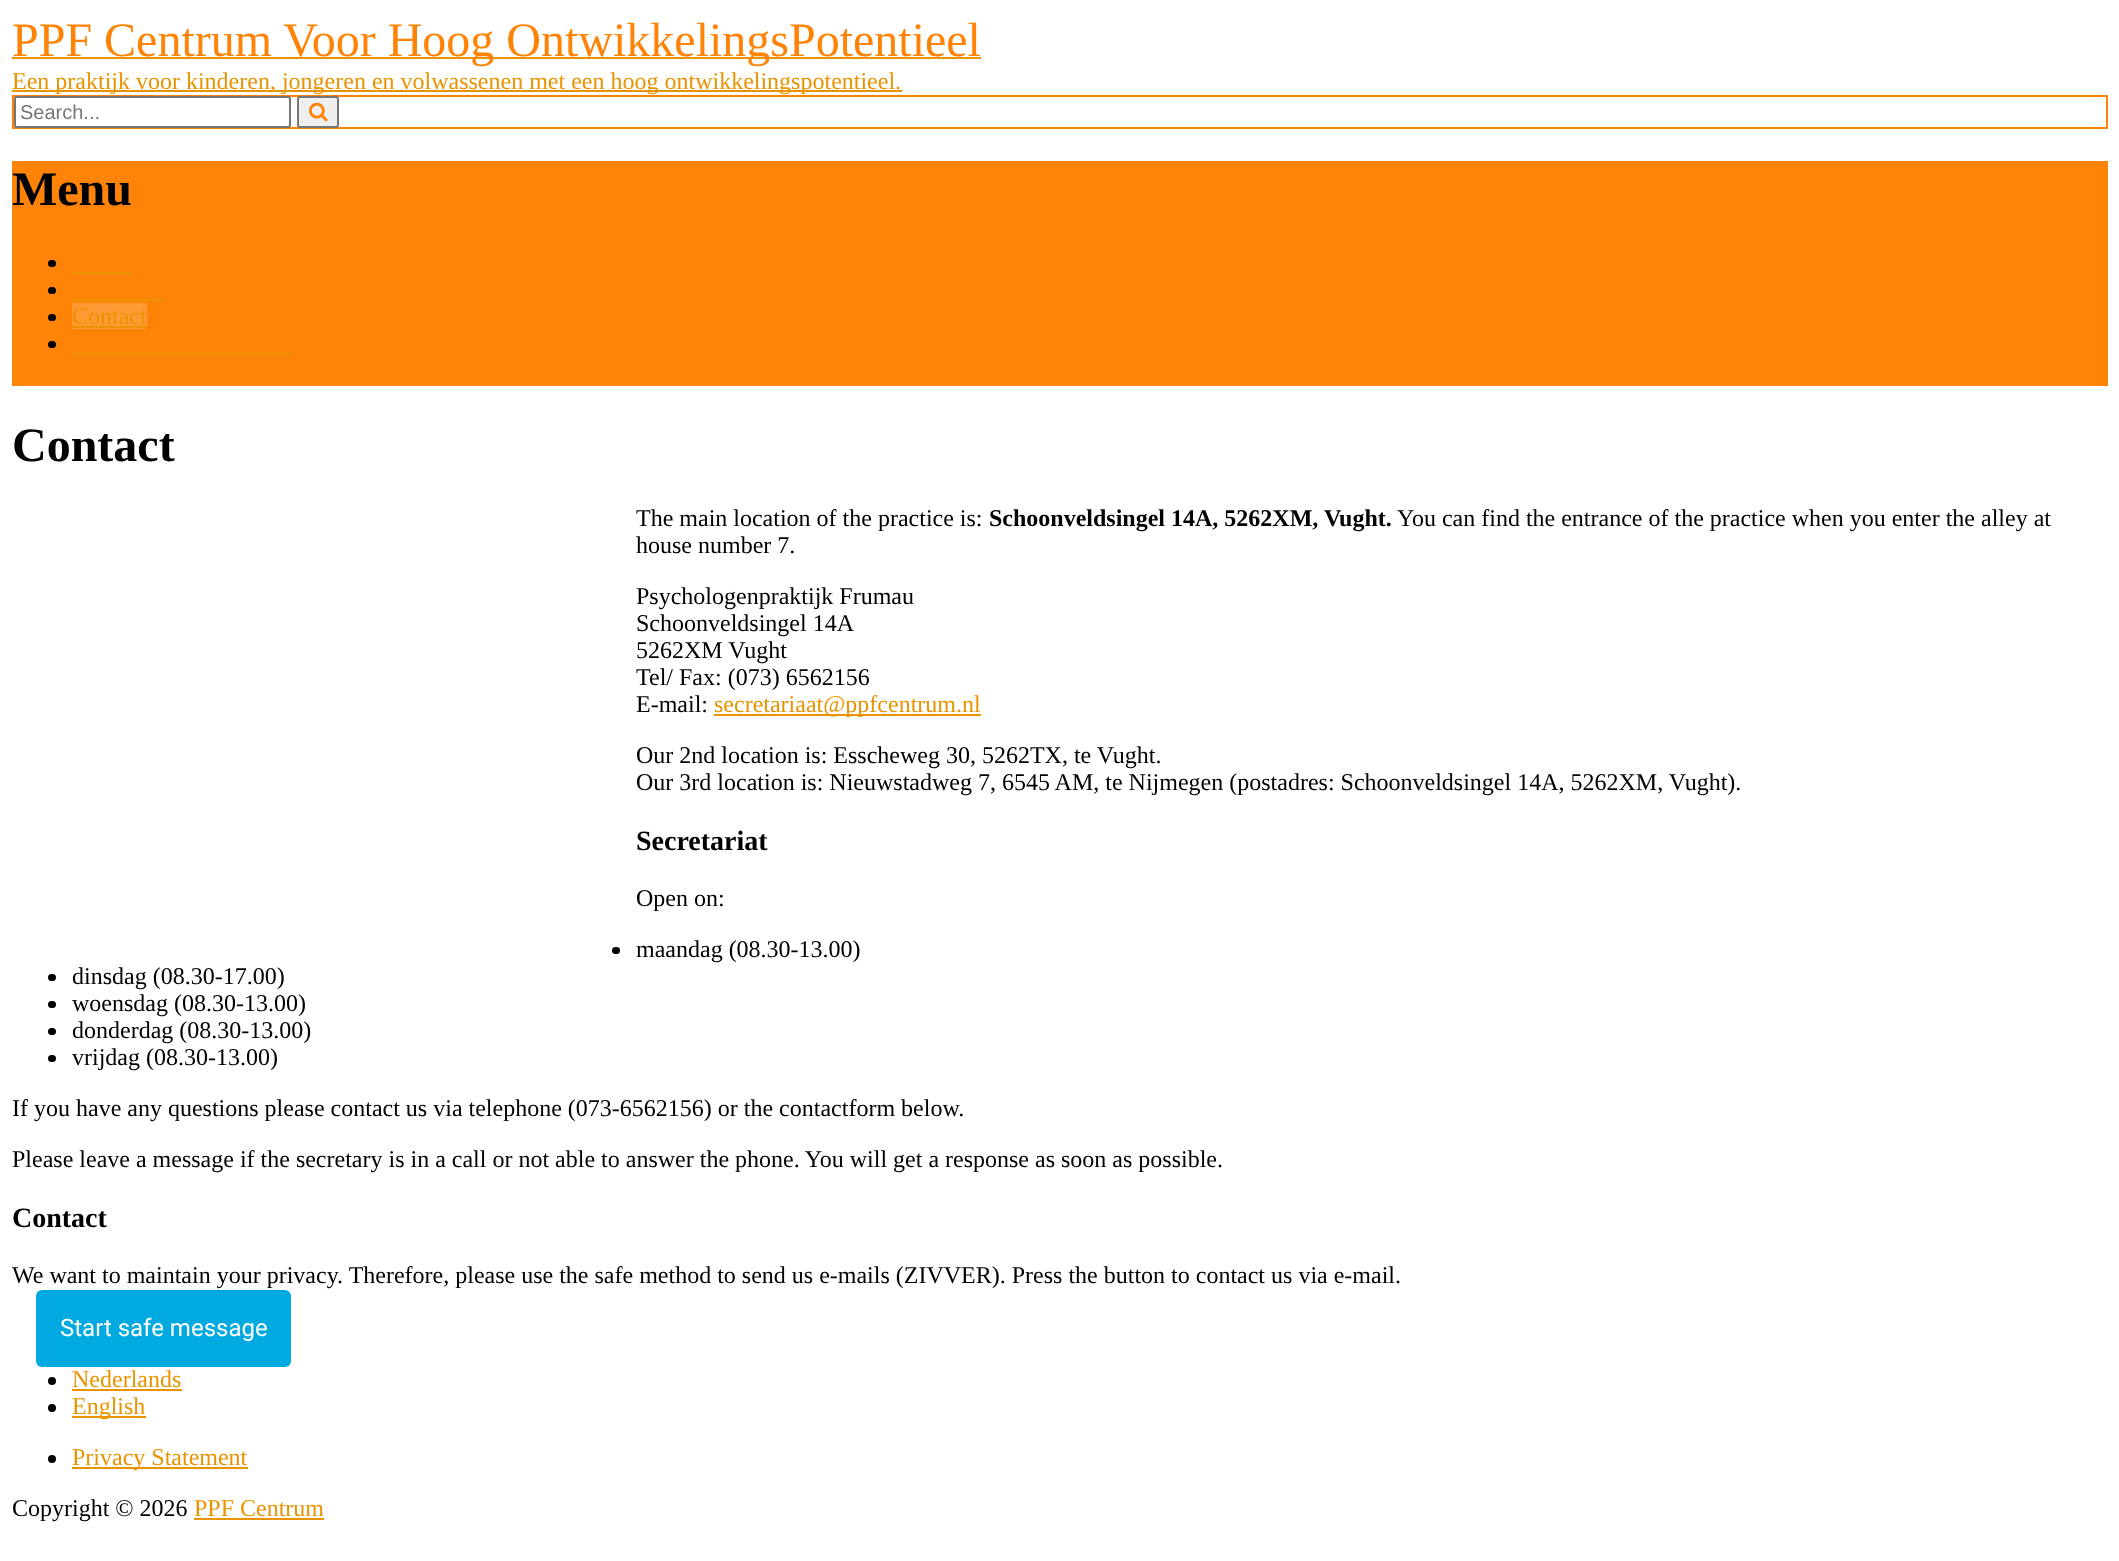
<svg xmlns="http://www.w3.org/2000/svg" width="2119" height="1561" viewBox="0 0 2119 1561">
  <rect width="100%" height="100%" fill="#fff"/>
  <path d="M12 57h969v2H12z" fill="#ea9300"/>
  <path d="M12 90h890v2H12z" fill="#ea9300"/>
  <path d="M13 96h2094v32H13z" fill="none" stroke="#fe8307" stroke-width="2"/>
  <rect x="15" y="97" width="275" height="30" rx="2" fill="#fff" stroke="#767676" stroke-width="2"/>
  <rect x="298" y="97" width="40" height="30" rx="2" fill="#efefef" stroke="#767676" stroke-width="2"/>
  <image x="309" y="102" width="19" height="20" href="img/1.png"/>
  <path d="M12 161h2096v225H12z" fill="#fe8307"/>
  <rect x="48" y="260" width="8" height="7" rx="3.5" fill="#000"/>
  <path d="M72 272h59v2H72z" fill="#ea9300"/>
  <rect x="48" y="287" width="8" height="7" rx="3.5" fill="#000"/>
  <path d="M72 299h93v2H72z" fill="#ea9300"/>
  <rect x="48" y="314" width="8" height="7" rx="3.5" fill="#000"/>
  <path d="M72 303h75v26H72z" fill="#f93"/>
  <path d="M72 326h75v2H72z" fill="#ea9300"/>
  <rect x="48" y="341" width="8" height="7" rx="3.5" fill="#000"/>
  <path d="M72 353h221v2H72z" fill="#ea9300"/>
  <path d="M714 714h267v2H714z" fill="#ea9300"/>
  <rect x="612" y="947" width="8" height="7" rx="3.5" fill="#000"/>
  <rect x="48" y="974" width="8" height="7" rx="3.5" fill="#000"/>
  <rect x="48" y="1001" width="8" height="7" rx="3.5" fill="#000"/>
  <rect x="48" y="1028" width="8" height="7" rx="3.5" fill="#000"/>
  <rect x="48" y="1055" width="8" height="7" rx="3.5" fill="#000"/>
  <rect x="36" y="1290" width="255" height="77" rx="6" fill="#00a9e0"/>
  <circle cx="52" cy="1381" r="4" fill="#000"/>
  <path d="M72 1389h110v2H72z" fill="#ea9300"/>
  <circle cx="52" cy="1408" r="4" fill="#000"/>
  <path d="M72 1416h74v2H72z" fill="#ea9300"/>
  <circle cx="52" cy="1459" r="4" fill="#000"/>
  <path d="M72 1467h176v2H72z" fill="#ea9300"/>
  <path d="M194 1518h130v2H194z" fill="#ea9300"/>
  <text x="12" y="56" font-family="Liberation Serif" font-size="48" fill="#fe8307">PPF Centrum Voor Hoog OntwikkelingsPotentieel</text>
  <text x="12" y="89" font-family="Liberation Serif" font-size="24" fill="#ea9300">Een praktijk voor kinderen, jongeren en volwassenen met een hoog ontwikkelingspotentieel.</text>
  <text x="20" y="119" font-family="Liberation Sans" font-size="20" fill="#757575">Search...</text>
  <text x="12" y="205" font-family="Liberation Serif" font-size="48" font-weight="bold" fill="#000">Menu</text>
  <text x="72" y="324" font-family="Liberation Serif" font-size="24" fill="#ea9300">Contact</text>
  <text x="12" y="461" font-family="Liberation Serif" font-size="48" font-weight="bold" fill="#000">Contact</text>
  <text x="636" y="526" font-family="Liberation Serif" font-size="24" fill="#000">The main location of the practice is:</text>
  <text x="989" y="526" font-family="Liberation Serif" font-size="24" font-weight="bold" fill="#000">Schoonveldsingel 14A, 5262XM, Vught.</text>
  <g font-family="Liberation Serif" font-size="24" fill="#000">
    <text x="1397" y="526">You can find the entrance of the practice when you enter the alley at</text>
    <text x="636" y="553">house number 7.</text>
    <text x="636" y="604">Psychologenpraktijk Frumau</text>
    <text x="636" y="631">Schoonveldsingel 14A</text>
    <text x="636" y="658">5262XM Vught</text>
    <text x="636" y="685">Tel/ Fax: (073) 6562156</text>
    <text x="636" y="712">E-mail:</text>
  </g>
  <text x="714" y="712" font-family="Liberation Serif" font-size="24" fill="#ea9300">secretariaat@ppfcentrum.nl</text>
  <g font-family="Liberation Serif" font-size="24" fill="#000">
    <text x="636" y="763">Our 2nd location is: Esscheweg 30, 5262TX, te Vught.</text>
    <text x="636" y="790">Our 3rd location is: Nieuwstadweg 7, 6545 AM, te Nijmegen (postadres: Schoonveldsingel 14A, 5262XM, Vught).</text>
  </g>
  <text x="636" y="850" font-family="Liberation Serif" font-size="28" font-weight="bold" fill="#000">Secretariat</text>
  <g font-family="Liberation Serif" font-size="24" fill="#000">
    <text x="636" y="906">Open on:</text>
    <text x="636" y="957">maandag (08.30-13.00)</text>
    <text x="72" y="984">dinsdag (08.30-17.00)</text>
    <text x="72" y="1011">woensdag (08.30-13.00)</text>
    <text x="72" y="1038">donderdag (08.30-13.00)</text>
    <text x="72" y="1065">vrijdag (08.30-13.00)</text>
    <text x="12" y="1116">If you have any questions please contact us via telephone (073-6562156) or the contactform below.</text>
    <text x="12" y="1167">Please leave a message if the secretary is in a call or not able to answer the phone. You will get a response as soon as possible.</text>
  </g>
  <text x="12" y="1227" font-family="Liberation Serif" font-size="28" font-weight="bold" fill="#000">Contact</text>
  <text x="12" y="1283" font-family="Liberation Serif" font-size="24" fill="#000">We want to maintain your privacy. Therefore, please use the safe method to send us e-mails (ZIVVER). Press the button to contact us via e-mail.</text>
  <text x="60" y="1336" font-family="Roboto" font-size="24" fill="#fff">Start safe message</text>
  <g font-family="Liberation Serif" font-size="24" fill="#ea9300">
    <text x="72" y="1387">Nederlands</text>
    <text x="72" y="1414">English</text>
    <text x="72" y="1465">Privacy Statement</text>
  </g>
  <text x="12" y="1516" font-family="Liberation Serif" font-size="24" fill="#000">Copyright © 2026</text>
  <text x="194" y="1516" font-family="Liberation Serif" font-size="24" fill="#ea9300">PPF Centrum</text>
</svg>
